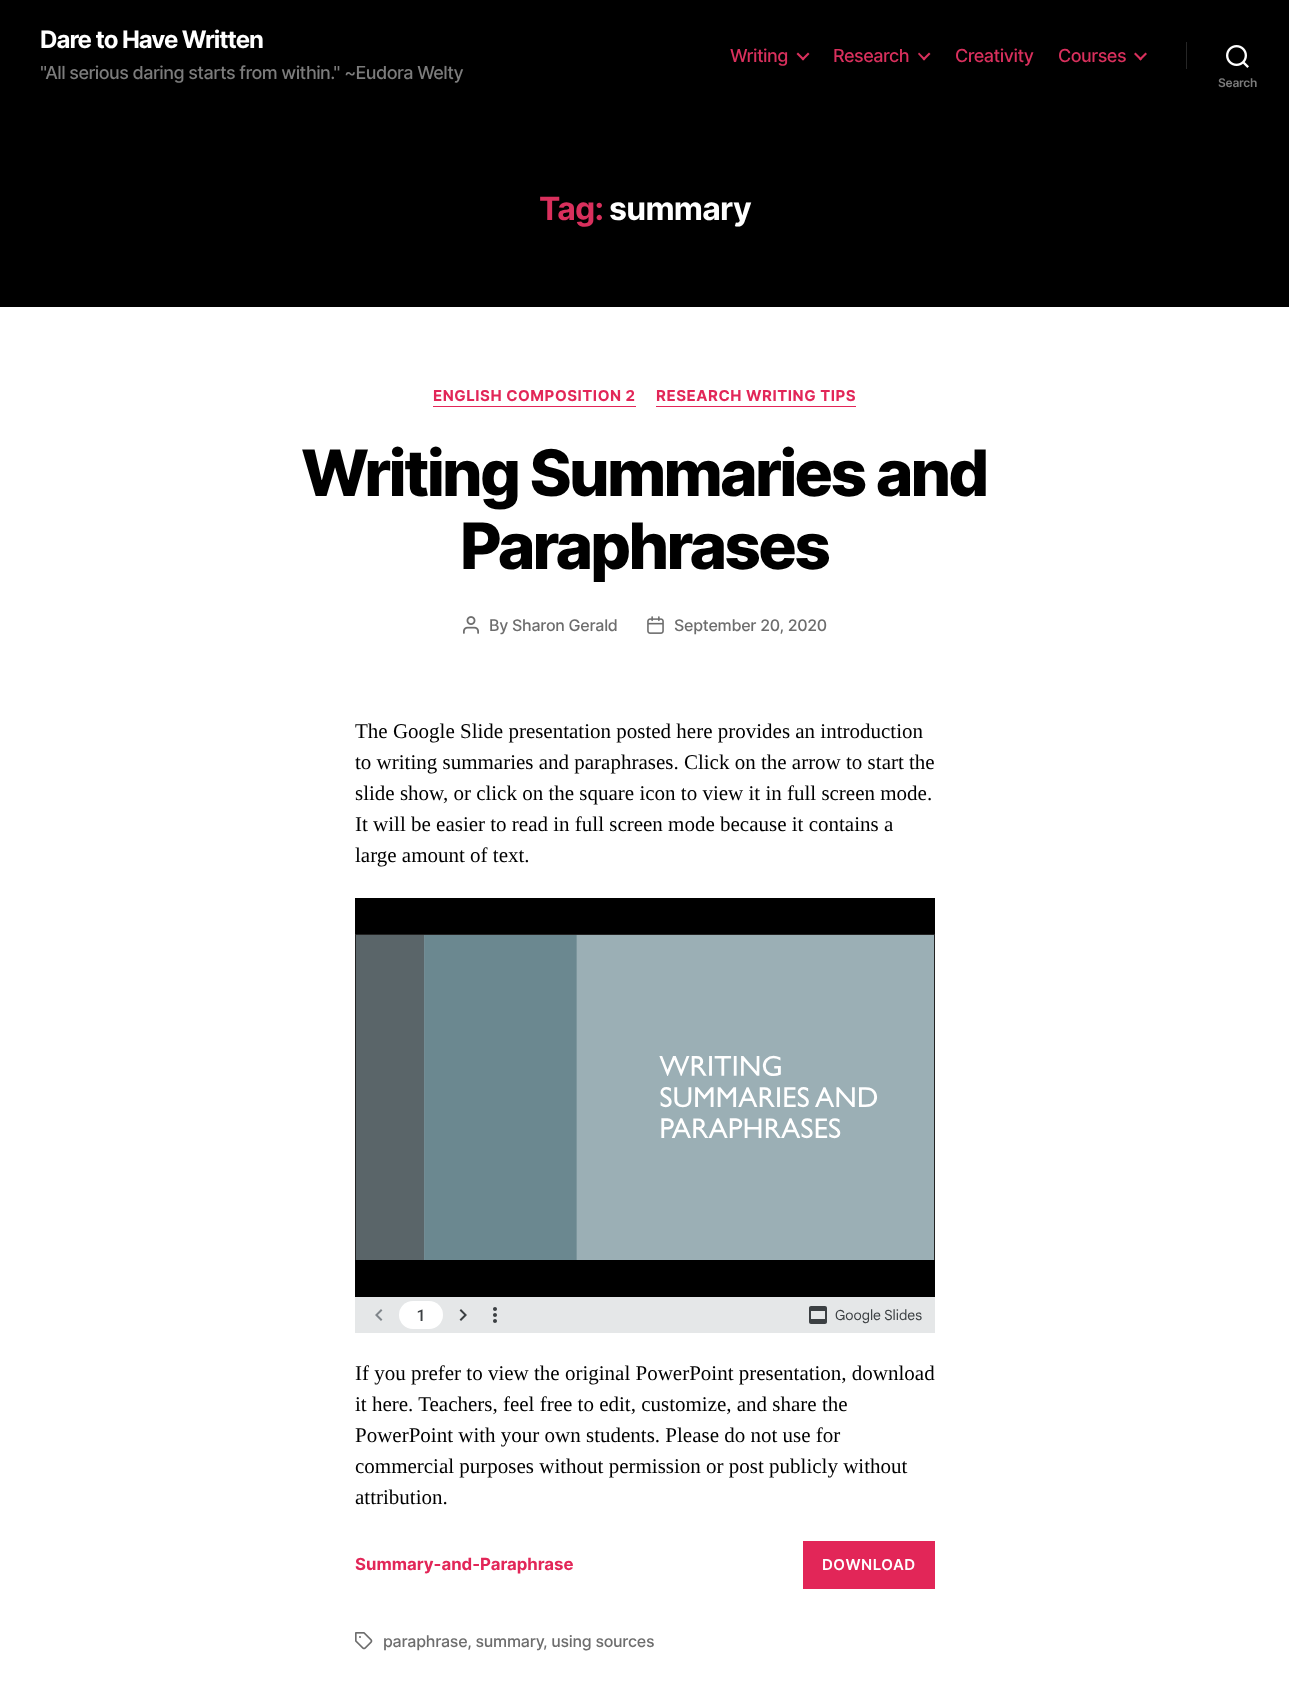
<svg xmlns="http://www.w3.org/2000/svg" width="1289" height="1706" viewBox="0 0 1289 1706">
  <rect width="100%" height="100%" fill="#fff"/>
  <path d="M0 0h1289v307H0z" fill="#000"/>
  <path d="M796.5 54L798 52.5L804.5 59L803 60.5Z" fill="#d9305d"/>
  <path d="M801.5 59L808 52.5L809.5 54L803 60.5Z" fill="#d9305d"/>
  <path d="M918 54L919 52.5L925.5 59L924 60.5Z" fill="#d9305d"/>
  <path d="M922.5 59L929 52.5L930.5 54L924 60.5Z" fill="#d9305d"/>
  <path d="M1134 54L1135.5 52.5L1142 59L1140.5 60.5Z" fill="#d9305d"/>
  <path d="M1139 59L1145.5 52.5L1147 54L1140.5 60.5Z" fill="#d9305d"/>
  <path d="M1186 42h1v27H1186z" fill="#262626"/>
  <image x="1226" y="45" width="23" height="23" href="img/1.png"/>
  <path d="M433 406h203v1H433z" fill="#e22658"/>
  <path d="M656 406h200v1H656z" fill="#e22658"/>
  <image x="463" y="616" width="16" height="18" href="img/2.png"/>
  <image x="647" y="616" width="17" height="18" href="img/3.png"/>
  <image x="355" y="898" width="580" height="435" href="img/4.png"/>
  <path d="M803 1541h132v48H803z" fill="#e22658"/>
  <image x="355" y="1632" width="18" height="18" href="img/5.png"/>
  <text x="40" y="48" font-family="Inter" font-size="24" font-weight="bold" letter-spacing="-1" fill="#fff">Dare to Have Written</text>
  <text x="40" y="79" font-family="Inter" font-size="18" font-weight="500" letter-spacing="-0.55" fill="#7c7c7c">"All serious daring starts from within." ~Eudora Welty</text>
  <g font-family="Inter" font-size="18" font-weight="500" letter-spacing="-0.5" fill="#d9305d">
    <text x="730" y="62">Writing</text>
    <text x="833" y="62">Research</text>
    <text x="955" y="62">Creativity</text>
    <text x="1058" y="62">Courses</text>
  </g>
  <text x="1218" y="87" font-family="Inter" font-size="12" font-weight="600" letter-spacing="-0.25" fill="#7c7c7c">Search</text>
  <text x="539" y="220" font-family="Inter" font-size="32" font-weight="bold" letter-spacing="-0.75" fill="#d9305d">Tag:</text>
  <text x="609" y="220" font-family="Inter" font-size="32" font-weight="bold" letter-spacing="-0.75" fill="#fff">summary</text>
  <g font-family="Inter" font-size="15" font-weight="bold" letter-spacing="0.55" fill="#e22658">
    <text x="433" y="401">ENGLISH COMPOSITION 2</text>
    <text x="656" y="401">RESEARCH WRITING TIPS</text>
  </g>
  <g font-family="Inter" font-size="64" font-weight="800" letter-spacing="-2.7" fill="#000">
    <text x="301" y="496">Writing Summaries and</text>
    <text x="460" y="569">Paraphrases</text>
  </g>
  <g font-family="Inter" font-size="16" font-weight="500" letter-spacing="-0.25" fill="#6d6d6d">
    <text x="489" y="631">By Sharon Gerald</text>
    <text x="674" y="631">September 20, 2020</text>
  </g>
  <g font-family="Liberation Serif" font-size="21" fill="#000">
    <text x="355" y="738">The Google Slide presentation posted here provides an introduction</text>
    <text x="355" y="769">to writing summaries and paraphrases. Click on the arrow to start the</text>
    <text x="355" y="800">slide show, or click on the square icon to view it in full screen mode.</text>
    <text x="355" y="831">It will be easier to read in full screen mode because it contains a</text>
    <text x="355" y="862">large amount of text.</text>
    <text x="355" y="1380">If you prefer to view the original PowerPoint presentation, download</text>
    <text x="355" y="1411">it here. Teachers, feel free to edit, customize, and share the</text>
    <text x="355" y="1442">PowerPoint with your own students. Please do not use for</text>
    <text x="355" y="1473">commercial purposes without permission or post publicly without</text>
    <text x="355" y="1504">attribution.</text>
  </g>
  <text x="355" y="1570" font-family="Inter" font-size="16.75" font-weight="bold" fill="#e22658">Summary-and-Paraphrase</text>
  <text x="822" y="1570" font-family="Inter" font-size="15" font-weight="600" letter-spacing="0.5" fill="#fff">DOWNLOAD</text>
  <g font-family="Inter" font-size="16" font-weight="500" letter-spacing="-0.25" fill="#6d6d6d">
    <text x="383" y="1647">paraphrase, summary</text>
    <text x="543" y="1647">, using sources</text>
  </g>
</svg>
